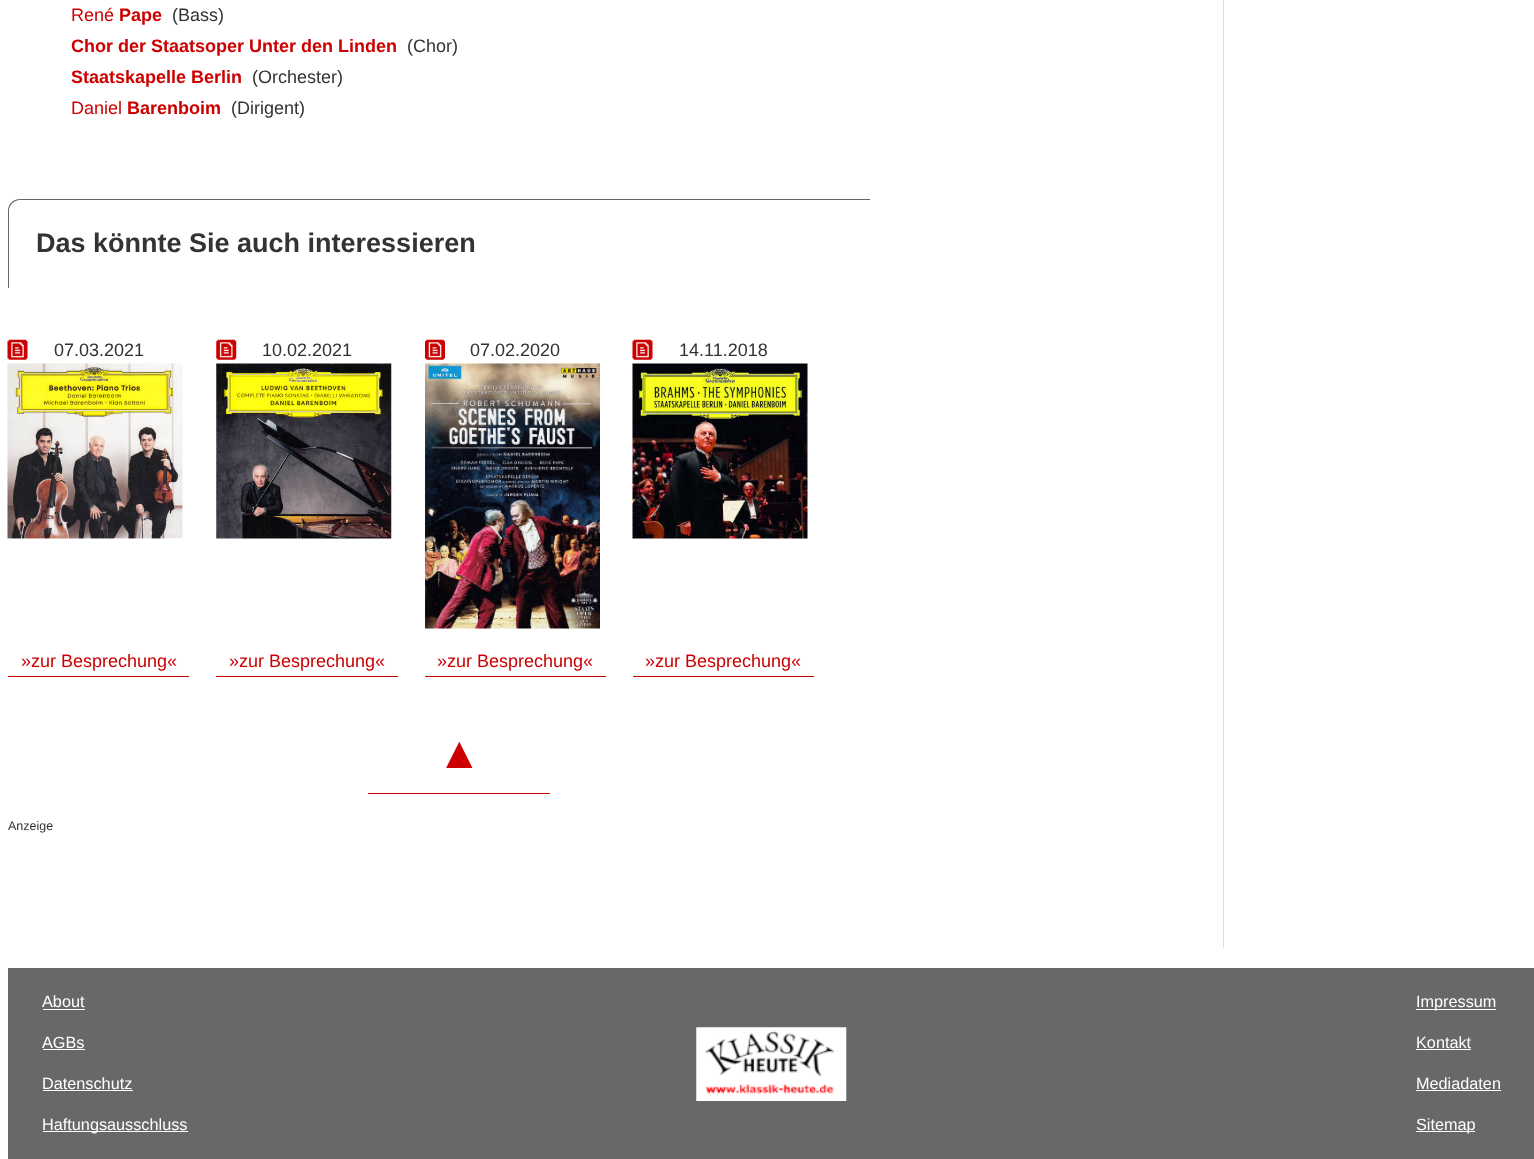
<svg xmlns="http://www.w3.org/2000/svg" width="1534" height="1159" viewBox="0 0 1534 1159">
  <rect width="100%" height="100%" fill="#fff"/>
  <path d="M20 199H870V288H8V211C8 204 13 199 20 199ZM20 200H870V288H9V211C9 205 14 200 20 200Z" fill="#666" fill-rule="evenodd"/>
  <image x="7" y="339" width="21" height="21" href="img/1.png"/>
  <path d="M8 676h181v1H8z" fill="#c00"/>
  <image x="7" y="363" width="176" height="176" href="img/2.png"/>
  <image x="216" y="339" width="21" height="21" href="img/3.png"/>
  <path d="M216 676h182v1H216z" fill="#c00"/>
  <image x="216" y="363" width="176" height="176" href="img/4.png"/>
  <image x="425" y="339" width="20" height="21" href="img/5.png"/>
  <path d="M425 676h181v1H425z" fill="#c00"/>
  <image x="425" y="363" width="175" height="266" href="img/6.png"/>
  <image x="632" y="339" width="21" height="21" href="img/1.png"/>
  <path d="M633 676h181v1H633z" fill="#c00"/>
  <image x="632" y="363" width="176" height="176" href="img/7.png"/>
  <path d="M368 793h182v1H368z" fill="#c00"/>
  <path d="M1223 0h1v948H1223z" fill="#ddd"/>
  <path d="M8 968h1526v191H8z" fill="#686868"/>
  <image x="696" y="1027" width="151" height="74" href="img/8.png"/>
  <path d="M43 1009h42v1H43z" fill="#fff"/>
  <path d="M43 1049h42v1H43z" fill="#fff"/>
  <path d="M43 1090h90v1H43z" fill="#fff"/>
  <path d="M43 1131h145v1H43z" fill="#fff"/>
  <path d="M1416 1009h80v1H1416z" fill="#fff"/>
  <path d="M1416 1049h55v1H1416z" fill="#fff"/>
  <path d="M1416 1090h85v1H1416z" fill="#fff"/>
  <path d="M1416 1131h59v1H1416z" fill="#fff"/>
  <text x="71" y="21" font-family="Liberation Sans" font-size="18" fill="#c00">René</text>
  <text x="119" y="21" font-family="Liberation Sans" font-size="18" font-weight="bold" fill="#c00">Pape</text>
  <text x="172" y="21" font-family="Liberation Sans" font-size="18" fill="#333">(Bass)</text>
  <text x="71" y="52" font-family="Liberation Sans" font-size="18" font-weight="bold" fill="#c00">Chor der Staatsoper Unter den Linden</text>
  <text x="407" y="52" font-family="Liberation Sans" font-size="18" fill="#333">(Chor)</text>
  <text x="71" y="83" font-family="Liberation Sans" font-size="18" font-weight="bold" fill="#c00">Staatskapelle Berlin</text>
  <text x="252" y="83" font-family="Liberation Sans" font-size="18" fill="#333">(Orchester)</text>
  <text x="71" y="114" font-family="Liberation Sans" font-size="18" fill="#c00">Daniel</text>
  <text x="127" y="114" font-family="Liberation Sans" font-size="18" font-weight="bold" fill="#c00">Barenboim</text>
  <text x="231" y="114" font-family="Liberation Sans" font-size="18" fill="#333">(Dirigent)</text>
  <text x="36" y="252" font-family="Liberation Sans" font-size="27" font-weight="bold" fill="#333">Das könnte Sie auch interessieren</text>
  <text x="54" y="356" font-family="Liberation Sans" font-size="18" fill="#333">07.03.2021</text>
  <text x="21" y="667" font-family="Liberation Sans" font-size="18" fill="#c00">»zur Besprechung«</text>
  <text x="262" y="356" font-family="Liberation Sans" font-size="18" fill="#333">10.02.2021</text>
  <text x="229" y="667" font-family="Liberation Sans" font-size="18" fill="#c00">»zur Besprechung«</text>
  <text x="470" y="356" font-family="Liberation Sans" font-size="18" fill="#333">07.02.2020</text>
  <text x="437" y="667" font-family="Liberation Sans" font-size="18" fill="#c00">»zur Besprechung«</text>
  <text x="679" y="356" font-family="Liberation Sans" font-size="18" fill="#333">14.11.2018</text>
  <text x="645" y="667" font-family="Liberation Sans" font-size="18" fill="#c00">»zur Besprechung«</text>
  <text x="437" y="768" font-family="Liberation Sans" font-size="45" font-weight="bold" fill="#c00">▲</text>
  <text x="8" y="830" font-family="Liberation Sans" font-size="12.5" fill="#333">Anzeige</text>
  <g font-family="Liberation Sans" font-size="16.25" fill="#fff">
    <text x="42" y="1007">About</text>
    <text x="42" y="1048">AGBs</text>
    <text x="42" y="1089">Datenschutz</text>
    <text x="42" y="1130">Haftungsausschluss</text>
    <text x="1416" y="1007">Impressum</text>
    <text x="1416" y="1048">Kontakt</text>
    <text x="1416" y="1089">Mediadaten</text>
    <text x="1416" y="1130">Sitemap</text>
  </g>
</svg>
